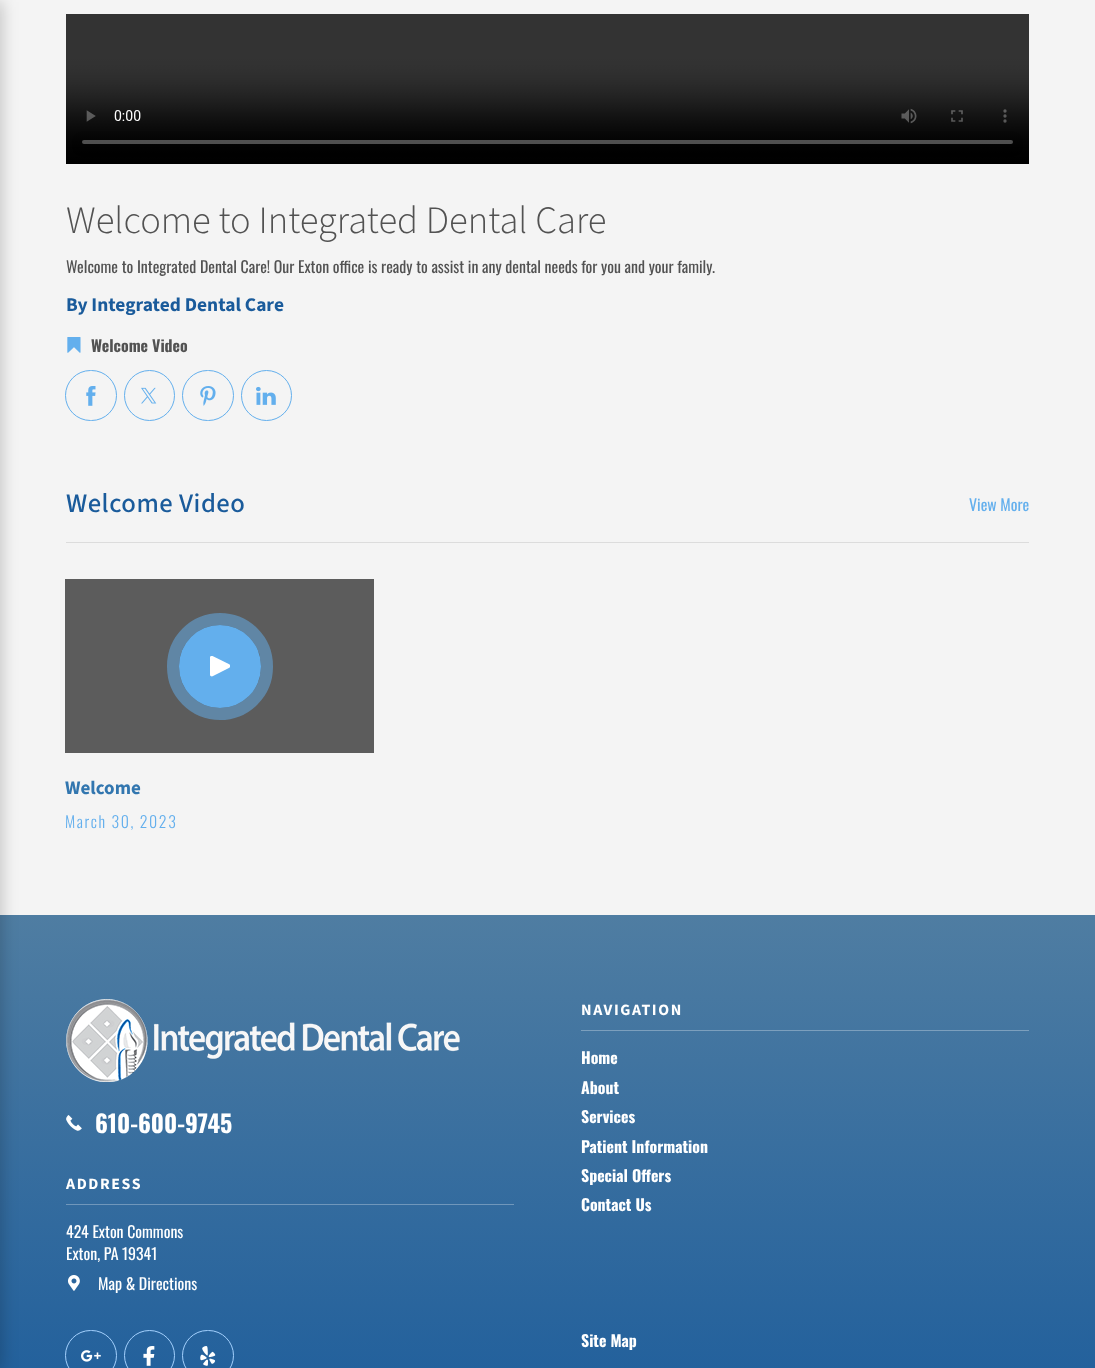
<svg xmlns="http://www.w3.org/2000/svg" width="1095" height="1368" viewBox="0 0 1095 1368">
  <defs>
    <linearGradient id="g1" gradientUnits="userSpaceOnUse" x1="548" y1="915" x2="548" y2="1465"><stop offset="0" stop-color="#4f7da2"/><stop offset="1" stop-color="#1a5b9b"/></linearGradient>
  </defs>
  <rect width="100%" height="100%" fill="#f4f4f4"/>
  <path d="M0 915h1095v453H0z" fill="url(#g1)"/>
  <path d="M-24 2h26v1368H-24z" fill="#00000033" filter="blur(8px)"/>
  <image x="66" y="14" width="963" height="150" href="img/1.png"/>
  <image x="67" y="337" width="14" height="16" href="img/2.png"/>
  <image x="86" y="386" width="10" height="20" href="img/3.png"/>
  <rect x="65.5" y="370.5" width="51" height="50" rx="25" fill="none" stroke="#63afed"/>
  <image x="141" y="387" width="16" height="17" href="img/4.png"/>
  <circle cx="149.5" cy="395.5" r="25" fill="none" stroke="#63afed"/>
  <image x="200" y="386" width="16" height="20" href="img/5.png"/>
  <rect x="182.5" y="370.5" width="51" height="50" rx="25" fill="none" stroke="#63afed"/>
  <image x="256" y="386" width="20" height="19" href="img/6.png"/>
  <circle cx="266.5" cy="395.5" r="25" fill="none" stroke="#63afed"/>
  <path d="M66 542h963v1H66z" fill="#dcdcdc"/>
  <path d="M65 579h309v174H65z" fill="#5c5c5c"/>
  <rect x="179" y="625" width="82" height="83" rx="41" fill="#63afed"/>
  <rect x="173" y="619" width="94" height="95" rx="47" fill="none" stroke="#63afed80" stroke-width="12"/>
  <image x="210" y="656" width="20" height="21" href="img/7.png"/>
  <image x="66" y="999" width="394" height="83" href="img/8.png"/>
  <image x="66" y="1115" width="16" height="16" href="img/9.png"/>
  <path d="M66 1204h448v1H66z" fill="#7097bb"/>
  <image x="68" y="1275" width="12" height="16" href="img/10.png"/>
  <image x="81" y="1350" width="20" height="12" href="img/11.png"/>
  <rect x="65.5" y="1330.5" width="51" height="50" rx="25" fill="none" stroke="#a4d1fe"/>
  <image x="143" y="1346" width="12" height="20" href="img/12.png"/>
  <circle cx="149.5" cy="1355.5" r="25" fill="none" stroke="#a4d1fe"/>
  <image x="200" y="1346" width="16" height="20" href="img/13.png"/>
  <rect x="182.5" y="1330.5" width="51" height="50" rx="25" fill="none" stroke="#a4d1fe"/>
  <path d="M581 1030h448v1H581z" fill="#7c9fbd"/>
  <text x="66" y="233" font-family="'Source Sans 3'" font-size="38.6" font-weight="200" fill="#525252">Welcome to Integrated Dental Care</text>
  <text x="66" y="273" font-family="Oswald" font-size="15.85" fill="#525252">Welcome to Integrated Dental Care! Our Exton office is ready to assist in any dental needs for you and your family.</text>
  <text x="66" y="311" font-family="'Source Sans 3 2'" font-size="19.4" font-weight="200" fill="#1a5b9b">By Integrated Dental Care</text>
  <text x="91" y="352" font-family="Oswald" font-size="15.85" font-weight="bold" fill="#525252">Welcome Video</text>
  <text x="66" y="512" font-family="'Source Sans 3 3'" font-size="26.75" font-weight="200" letter-spacing="0.5" fill="#1a5b9b">Welcome Video</text>
  <text x="969" y="511" font-family="Oswald" font-size="15.85" fill="#63afed">View More</text>
  <text x="65" y="794" font-family="'Source Sans 3 2'" font-size="19" font-weight="200" fill="#3276af">Welcome</text>
  <text x="65" y="828" font-family="Oswald" font-size="15.85" font-weight="300" letter-spacing="1.6" fill="#63afed">March 30, 2023</text>
  <text x="95" y="1133" font-family="Oswald" font-size="24" font-weight="bold" fill="#fff">610-600-9745</text>
  <text x="66" y="1189" font-family="'Source Sans 3 2'" font-size="15.85" font-weight="200" letter-spacing="1.6" fill="#fff">ADDRESS</text>
  <g font-family="Oswald" font-size="15.85" fill="#fff">
    <text x="66" y="1238">424 Exton Commons</text>
    <text x="66" y="1260">Exton, PA 19341</text>
    <text x="98" y="1290">Map &amp; Directions</text>
  </g>
  <text x="581" y="1015" font-family="'Source Sans 3 2'" font-size="15.85" font-weight="200" letter-spacing="1.6" fill="#fff">NAVIGATION</text>
  <g font-family="Oswald" font-size="15.85" font-weight="bold" fill="#fff">
    <text x="581" y="1064">Home</text>
    <text x="581" y="1094">About</text>
    <text x="581" y="1123">Services</text>
    <text x="581" y="1153">Patient Information</text>
    <text x="581" y="1182">Special Offers</text>
    <text x="581" y="1211">Contact Us</text>
    <text x="581" y="1347">Site Map</text>
  </g>
</svg>
